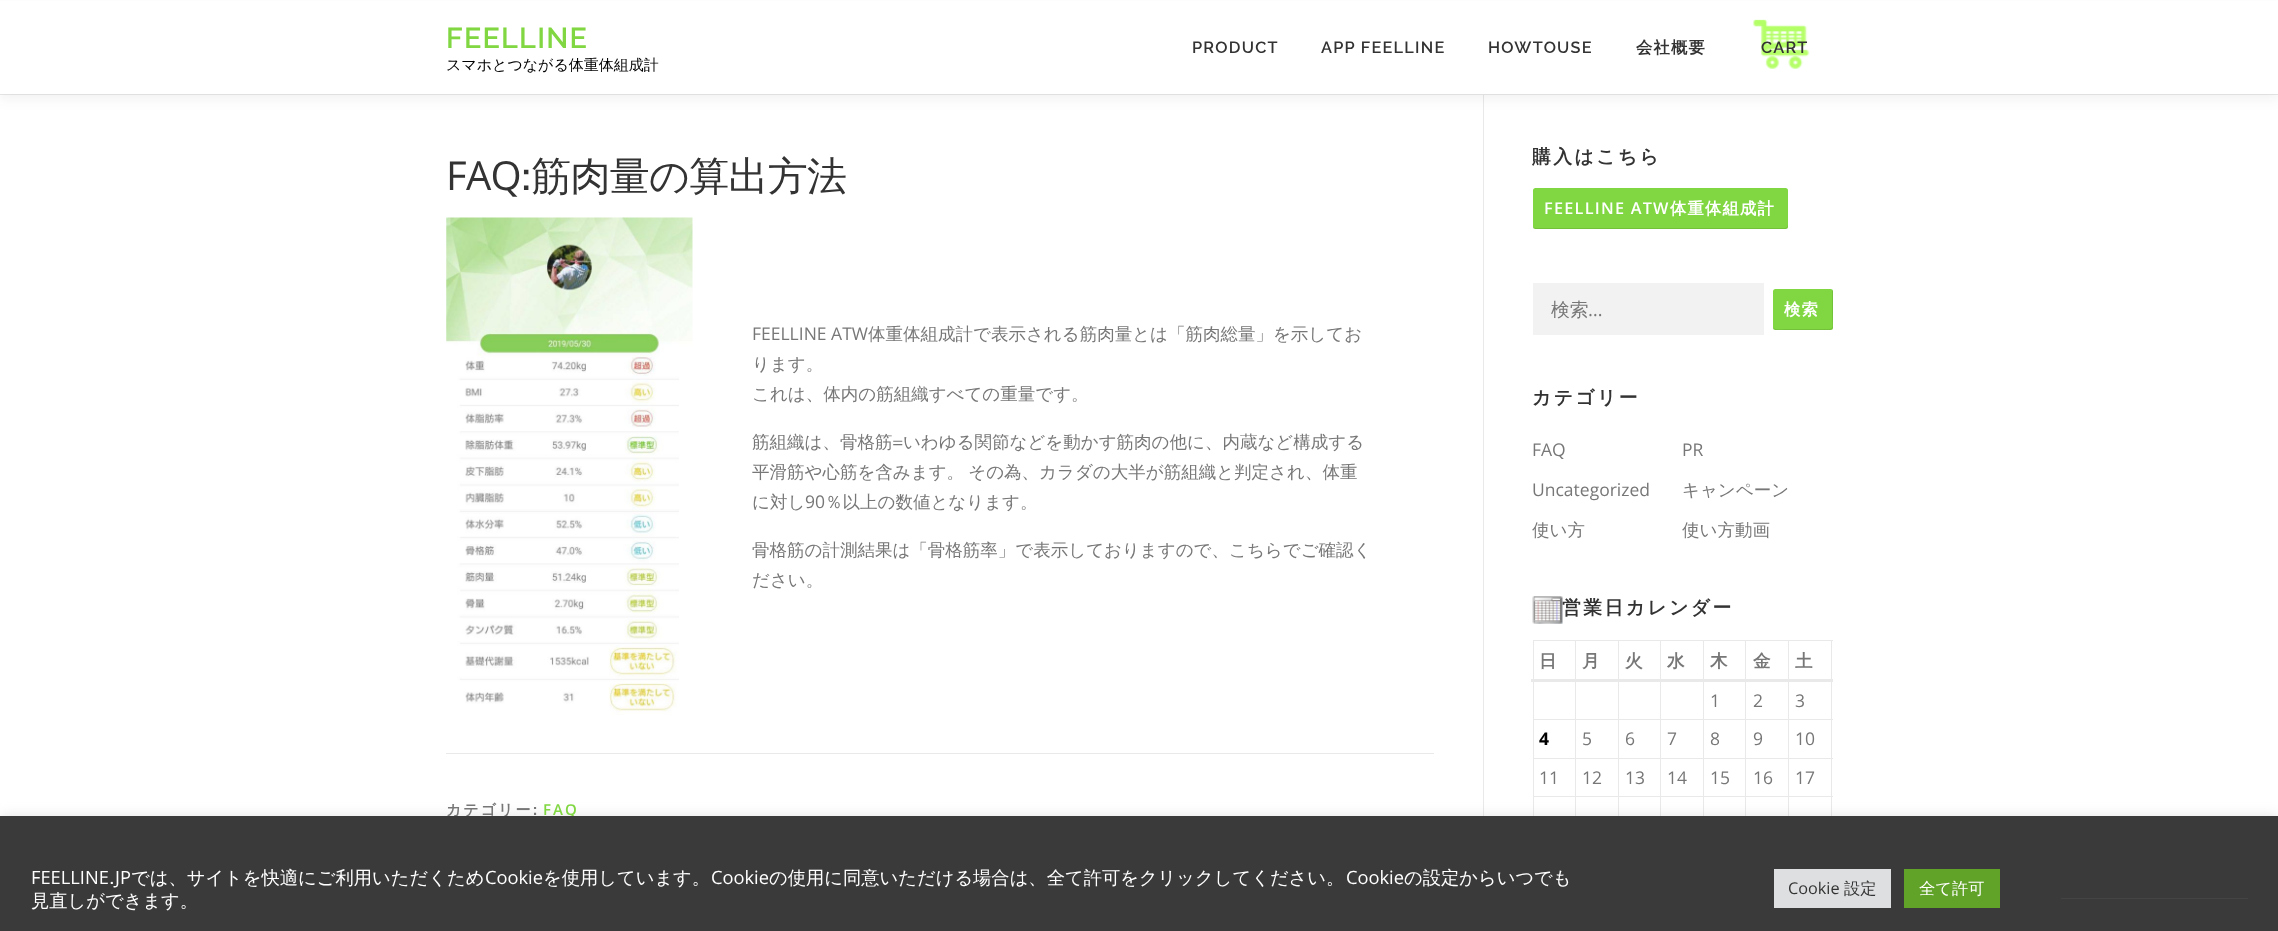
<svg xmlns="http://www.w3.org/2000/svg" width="2278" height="931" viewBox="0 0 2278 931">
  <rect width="100%" height="100%" fill="#fff"/>
  <path d="M0 94h2278v1H0z" fill="#e9e9e9"/>
  <path d="M1483 95h1v721H1483z" fill="#e9e9e9"/>
  <path d="M0 6h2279v94H0z" fill="#3232320f" filter="blur(6px)"/>
  <path d="M0 1h2278v93H0z" fill="#fff"/>
  <image x="1753" y="19" width="57" height="50" href="img/1.png"/>
  <image x="446" y="217" width="247" height="498" href="img/2.png"/>
  <path d="M446 753h988v1H446z" fill="#e9e9e9"/>
  <rect x="1533" y="188" width="255" height="41" rx="2.5" fill="#81d742"/>
  <path d="M1533 227C1533 228 1534 229 1536 229H1786C1787 229 1788 228 1788 226V225C1788 226 1786 228 1785 228H1535Z" fill="#0000001a"/>
  <path d="M1533 283h231v52H1533z" fill="#f2f2f2"/>
  <rect x="1773" y="289" width="60" height="41" rx="2.5" fill="#81d742"/>
  <path d="M1773 328C1773 329 1774 330 1776 330H1830C1832 330 1833 329 1833 328V292C1833 291 1833 290 1832 289V314C1832 330 1836 329 1821 329H1784C1784 329 1776 330 1773 328Z" fill="#0000001a"/>
  <image x="1532" y="596" width="31" height="28" href="img/3.png"/>
  <path d="M1533 640h300v1H1533z" fill="#e9e9e9"/>
  <path d="M1831 640h1v176H1831z" fill="#e9e9e9"/>
  <path d="M1533 640h1v176H1533z" fill="#e9e9e9"/>
  <path d="M1788 719h45v1H1788z" fill="#e9e9e9"/>
  <path d="M1788 758h45v1H1788z" fill="#e9e9e9"/>
  <path d="M1788 796h45v1H1788z" fill="#e9e9e9"/>
  <path d="M1788 796h1v20H1788z" fill="#e9e9e9"/>
  <path d="M1745 796h44v1H1745z" fill="#e9e9e9"/>
  <path d="M1788 758h1v40H1788z" fill="#e9e9e9"/>
  <path d="M1745 758h44v1H1745z" fill="#e9e9e9"/>
  <path d="M1788 719h1v40H1788z" fill="#e9e9e9"/>
  <path d="M1745 719h44v1H1745z" fill="#e9e9e9"/>
  <path d="M1745 796h1v20H1745z" fill="#e9e9e9"/>
  <path d="M1703 796h43v1H1703z" fill="#e9e9e9"/>
  <path d="M1745 758h1v40H1745z" fill="#e9e9e9"/>
  <path d="M1703 758h43v1H1703z" fill="#e9e9e9"/>
  <path d="M1745 719h1v40H1745z" fill="#e9e9e9"/>
  <path d="M1703 719h43v1H1703z" fill="#e9e9e9"/>
  <path d="M1703 796h1v20H1703z" fill="#e9e9e9"/>
  <path d="M1660 796h44v1H1660z" fill="#e9e9e9"/>
  <path d="M1703 758h1v40H1703z" fill="#e9e9e9"/>
  <path d="M1660 758h44v1H1660z" fill="#e9e9e9"/>
  <path d="M1703 719h1v40H1703z" fill="#e9e9e9"/>
  <path d="M1660 719h44v1H1660z" fill="#e9e9e9"/>
  <path d="M1660 796h1v20H1660z" fill="#e9e9e9"/>
  <path d="M1618 796h43v1H1618z" fill="#e9e9e9"/>
  <path d="M1660 758h1v40H1660z" fill="#e9e9e9"/>
  <path d="M1618 758h43v1H1618z" fill="#e9e9e9"/>
  <path d="M1660 719h1v40H1660z" fill="#e9e9e9"/>
  <path d="M1618 719h43v1H1618z" fill="#e9e9e9"/>
  <path d="M1618 796h1v20H1618z" fill="#e9e9e9"/>
  <path d="M1575 796h44v1H1575z" fill="#e9e9e9"/>
  <path d="M1618 758h1v40H1618z" fill="#e9e9e9"/>
  <path d="M1575 758h44v1H1575z" fill="#e9e9e9"/>
  <path d="M1618 719h1v40H1618z" fill="#e9e9e9"/>
  <path d="M1575 719h44v1H1575z" fill="#e9e9e9"/>
  <path d="M1575 796h1v20H1575z" fill="#e9e9e9"/>
  <path d="M1533 796h43v1H1533z" fill="#e9e9e9"/>
  <path d="M1575 758h1v40H1575z" fill="#e9e9e9"/>
  <path d="M1533 758h43v1H1533z" fill="#e9e9e9"/>
  <path d="M1575 719h1v40H1575z" fill="#e9e9e9"/>
  <path d="M1533 719h43v1H1533z" fill="#e9e9e9"/>
  <path d="M1575 640h1v80H1575z" fill="#e9e9e9"/>
  <path d="M1618 640h1v80H1618z" fill="#e9e9e9"/>
  <path d="M1660 640h1v80H1660z" fill="#e9e9e9"/>
  <path d="M1703 640h1v80H1703z" fill="#e9e9e9"/>
  <path d="M1745 640h1v80H1745z" fill="#e9e9e9"/>
  <path d="M1788 640h1v80H1788z" fill="#e9e9e9"/>
  <path d="M1531 679h302v3H1531z" fill="#e9e9e9"/>
  <path d="M0 815h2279v115H0z" fill="#acabab4d" filter="blur(6px)"/>
  <text x="446" y="48" font-family="Raleway" font-size="28.75" font-weight="600" letter-spacing="1.25" fill="#81d742">FEELLINE</text>
  <text x="446" y="70" font-family="WenQuanYi Zen Hei" font-size="15" font-weight="500" fill="#000">スマホとつながる体重体組成計</text>
  <g font-family="Raleway" font-size="16.25" font-weight="600" letter-spacing="1.25" fill="#333">
    <text x="1192" y="53">PRODUCT</text>
    <text x="1321" y="53">APP FEELLINE</text>
    <text x="1488" y="53">HOWTOUSE</text>
  </g>
  <text x="1636" y="53" font-family="WenQuanYi Zen Hei" font-size="16.25" font-weight="bold" letter-spacing="1.25" fill="#333">会社概要</text>
  <text x="1761" y="53" font-family="Raleway" font-size="16.25" font-weight="600" letter-spacing="1.25" fill="#333">CART</text>
  <text x="446" y="190" font-family="Open Sans" font-size="40" letter-spacing="-0.75" fill="#333">FAQ</text>
  <text x="520" y="190" font-family="WenQuanYi Zen Hei" font-size="40" font-weight="500" letter-spacing="-0.75" fill="#333">:筋肉量の算出方法</text>
  <text x="752" y="340" font-family="Open Sans" font-size="17.5" fill="#777">FEELLINE ATW</text>
  <g font-family="WenQuanYi Zen Hei" font-size="17.5" font-weight="500" fill="#777">
    <text x="868" y="340">体重体組成計で表示される筋肉量とは「筋肉総量」を示してお</text>
    <text x="752" y="370">ります。</text>
    <text x="752" y="400">これは、体内の筋組織すべての重量です。</text>
    <text x="752" y="448">筋組織は、骨格筋=いわゆる関節などを動かす筋肉の他に、内蔵など構成する</text>
    <text x="752" y="478" word-spacing="-1">平滑筋や心筋を含みます。 その為、カラダの大半が筋組織と判定され、体重</text>
    <text x="752" y="508">に対し</text>
  </g>
  <text x="805" y="508" font-family="Open Sans" font-size="17.5" fill="#777">90</text>
  <g font-family="WenQuanYi Zen Hei" font-size="17.5" font-weight="500" fill="#777">
    <text x="825" y="508">％以上の数値となります。</text>
    <text x="752" y="556">骨格筋の計測結果は「骨格筋率」で表示しておりますので、こちらでご確認く</text>
    <text x="752" y="586">ださい。</text>
  </g>
  <text x="446" y="815" font-family="WenQuanYi Zen Hei" font-size="15" font-weight="bold" letter-spacing="2" fill="#777">カテゴリー:</text>
  <text x="543" y="815" font-family="Open Sans" font-size="15" font-weight="600" letter-spacing="2" fill="#81d742">FAQ</text>
  <text x="1532" y="163" font-family="WenQuanYi Zen Hei" font-size="18.75" font-weight="bold" letter-spacing="2.5" fill="#333">購入はこちら</text>
  <text x="1544" y="214" font-family="Open Sans" font-size="16.25" font-weight="600" letter-spacing="1.25" fill="#fff">FEELLINE ATW</text>
  <text x="1670" y="214" font-family="WenQuanYi Zen Hei" font-size="16.25" font-weight="bold" letter-spacing="1.25" fill="#fff">体重体組成計</text>
  <text x="1551" y="316" font-family="WenQuanYi Zen Hei" font-size="18.75" font-weight="500" fill="#777">検索</text>
  <text x="1588" y="316" font-family="Open Sans" font-size="18.75" fill="#777">…</text>
  <text x="1784" y="315" font-family="WenQuanYi Zen Hei" font-size="16.25" font-weight="bold" letter-spacing="1.25" fill="#fff">検索</text>
  <text x="1532" y="404" font-family="WenQuanYi Zen Hei" font-size="18.75" font-weight="bold" letter-spacing="2.5" fill="#333">カテゴリー</text>
  <g font-family="Open Sans" font-size="17.5" fill="#777">
    <text x="1532" y="456">FAQ</text>
    <text x="1682" y="456">PR</text>
    <text x="1532" y="496">Uncategorized</text>
  </g>
  <g font-family="WenQuanYi Zen Hei" font-size="17.5" font-weight="500" fill="#777">
    <text x="1682" y="496">キャンペーン</text>
    <text x="1532" y="536">使い方</text>
    <text x="1682" y="536">使い方動画</text>
  </g>
  <text x="1562" y="614" font-family="WenQuanYi Zen Hei" font-size="18.75" font-weight="bold" letter-spacing="2.5" fill="#333">営業日カレンダー</text>
  <g font-family="WenQuanYi Zen Hei" font-size="17.5" font-weight="bold" letter-spacing="2.5" fill="#777">
    <text x="1539" y="667">日</text>
    <text x="1582" y="667">月</text>
    <text x="1625" y="667">火</text>
    <text x="1667" y="667">水</text>
    <text x="1710" y="667">木</text>
    <text x="1753" y="667">金</text>
    <text x="1795" y="667">土</text>
  </g>
  <g font-family="Open Sans" font-size="17.5" fill="#777">
    <text x="1710" y="707">1</text>
    <text x="1753" y="707">2</text>
    <text x="1795" y="707">3</text>
  </g>
  <text x="1539" y="745" font-family="Open Sans" font-size="17.5" font-weight="bold" fill="#000">4</text>
  <g font-family="Open Sans" font-size="17.5" fill="#777">
    <text x="1582" y="745">5</text>
    <text x="1625" y="745">6</text>
    <text x="1667" y="745">7</text>
    <text x="1710" y="745">8</text>
    <text x="1753" y="745">9</text>
    <text x="1795" y="745">10</text>
    <text x="1539" y="784">11</text>
    <text x="1582" y="784">12</text>
    <text x="1625" y="784">13</text>
    <text x="1667" y="784">14</text>
    <text x="1710" y="784">15</text>
    <text x="1753" y="784">16</text>
    <text x="1795" y="784">17</text>
  </g>
  <path d="M0 816h2278v115H0z" fill="#3a3a3a"/>
  <text x="31" y="884" font-family="Open Sans" font-size="18.3" fill="#fff">FEELLINE</text>
  <text x="109" y="884" font-family="WenQuanYi Zen Hei" font-size="18.3" font-weight="500" fill="#fff">.</text>
  <text x="115" y="884" font-family="Open Sans" font-size="18.3" fill="#fff">JP</text>
  <text x="131" y="884" font-family="WenQuanYi Zen Hei" font-size="18.3" font-weight="500" fill="#fff">では、サイトを快適にご利用いただくため</text>
  <text x="485" y="884" font-family="Open Sans" font-size="18.3" fill="#fff">Cookie</text>
  <text x="543" y="884" font-family="WenQuanYi Zen Hei" font-size="18.3" font-weight="500" fill="#fff">を使用しています。</text>
  <text x="711" y="884" font-family="Open Sans" font-size="18.3" fill="#fff">Cookie</text>
  <text x="769" y="884" font-family="WenQuanYi Zen Hei" font-size="18.3" font-weight="500" fill="#fff">の使用に同意いただける場合は、全て許可をクリックしてください。</text>
  <text x="1346" y="884" font-family="Open Sans" font-size="18.3" fill="#fff">Cookie</text>
  <g font-family="WenQuanYi Zen Hei" font-size="18.3" font-weight="500" fill="#fff">
    <text x="1404" y="884">の設定からいつでも</text>
    <text x="31" y="907">見直しができます。</text>
  </g>
  <path d="M1774 869h117v39H1774z" fill="#dedfe0"/>
  <text x="1788" y="894" font-family="Open Sans" font-size="16.25" fill="#333">Cookie</text>
  <text x="1844" y="894" font-family="WenQuanYi Zen Hei" font-size="16.25" font-weight="500" fill="#333">設定</text>
  <path d="M1904 869h96v39H1904z" fill="#61a229"/>
  <text x="1919" y="894" font-family="WenQuanYi Zen Hei" font-size="16.25" font-weight="500" fill="#fff">全て許可</text>
  <path d="M2061 898h187v1H2061z" fill="#444"/>
</svg>
